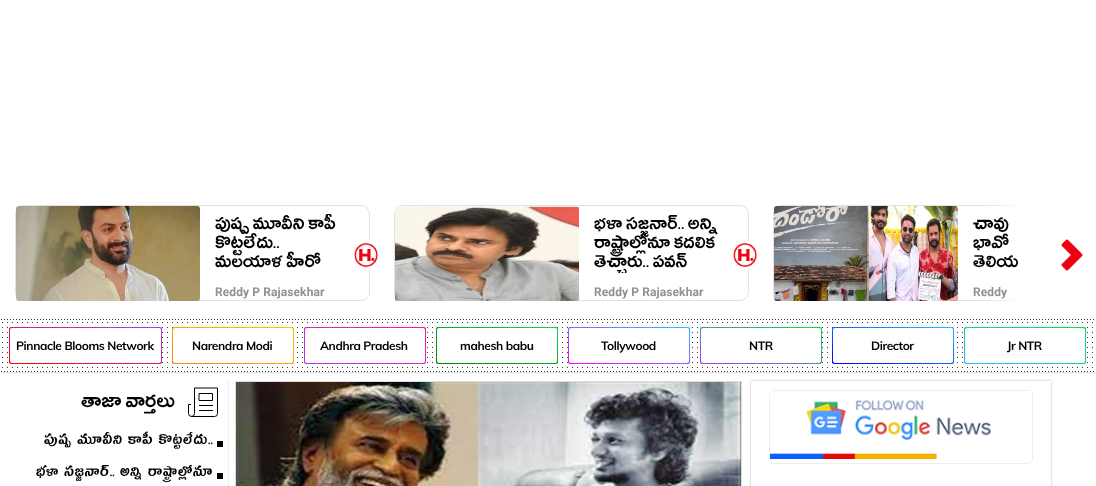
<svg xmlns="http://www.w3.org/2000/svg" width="1096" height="486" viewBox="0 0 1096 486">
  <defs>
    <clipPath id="clip1"><path d="M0 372h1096v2H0z"/></clipPath>
    <linearGradient id="g1" gradientUnits="userSpaceOnUse" x1="1015" y1="379" x2="1035" y2="312"><stop offset="0" stop-color="#26beff"/><stop offset="1" stop-color="#0bda51"/></linearGradient>
    <clipPath id="clip2"><rect x="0" y="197" width="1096" height="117" rx="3"/></clipPath>
    <linearGradient id="g2" gradientUnits="userSpaceOnUse" x1="77" y1="380" x2="94" y2="311"><stop offset="0" stop-color="#f00"/><stop offset="1" stop-color="#a43ef4"/></linearGradient>
    <linearGradient id="g3" gradientUnits="userSpaceOnUse" x1="223" y1="379" x2="243" y2="312"><stop offset="0" stop-color="#ff8413"/><stop offset="1" stop-color="#fcc200"/></linearGradient>
    <linearGradient id="g4" gradientUnits="userSpaceOnUse" x1="355" y1="379" x2="375" y2="312"><stop offset="0" stop-color="#a43ef4"/><stop offset="1" stop-color="#ff1493"/></linearGradient>
    <linearGradient id="g5" gradientUnits="userSpaceOnUse" x1="487" y1="379" x2="507" y2="312"><stop offset="0" stop-color="#008000"/><stop offset="1" stop-color="#0bda51"/></linearGradient>
    <linearGradient id="g6" gradientUnits="userSpaceOnUse" x1="619" y1="379" x2="639" y2="312"><stop offset="0" stop-color="#f0f"/><stop offset="1" stop-color="#26beff"/></linearGradient>
    <linearGradient id="g7" gradientUnits="userSpaceOnUse" x1="751" y1="379" x2="771" y2="312"><stop offset="0" stop-color="#a43ef4"/><stop offset="1" stop-color="#0bda51"/></linearGradient>
    <linearGradient id="g8" gradientUnits="userSpaceOnUse" x1="883" y1="379" x2="903" y2="312"><stop offset="0" stop-color="#00f"/><stop offset="1" stop-color="#26beff"/></linearGradient>
    <clipPath id="clip3"><path d="M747 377H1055V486H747ZM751 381H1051V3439H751Z" clip-rule="evenodd"/></clipPath>
    <clipPath id="clip4"><path d="M215 214h134v59H215z"/></clipPath>
    <clipPath id="clip5"><path d="M594 214h134v59H594z"/></clipPath>
  </defs>
  <rect width="100%" height="100%" fill="#fff"/>
  <g clip-path="url(#clip1)">
    <path d="M0 -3h1096v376H0z" fill="#94969f4d" filter="blur(1px)"/>
  </g>
  <rect x="15.5" y="205.5" width="354" height="95" rx="8.5" fill="none" stroke="#e2e2e2"/>
  <image x="16" y="206" width="184" height="95" href="img/1.png"/>
  <path d="M369 241h1v28H369z" fill="#fff"/>
  <image x="354" y="243" width="24" height="24" href="img/2.png"/>
  <rect x="394.5" y="205.5" width="354" height="95" rx="8.5" fill="none" stroke="#e2e2e2"/>
  <image x="395" y="206" width="184" height="95" href="img/3.png"/>
  <path d="M748 241h1v28H748z" fill="#fff"/>
  <image x="733" y="243" width="24" height="24" href="img/4.png"/>
  <path d="M782 205C777 205 773 209 773 214V292C773 297 777 301 782 301H1096V300H782C778 300 774 296 774 292V214C774 210 778 206 782 206H1096V205Z" fill="#e2e2e2"/>
  <image x="774" y="206" width="184" height="95" href="img/5.png"/>
  <path d="M1.5 319.5H1093.7" fill="none" stroke="#000" stroke-linecap="round" stroke-dasharray="0 3"/>
  <path d="M2.5 322.5H1092.7" fill="none" stroke="#000" stroke-linecap="round" stroke-dasharray="0 5"/>
  <path d="M2.5 327.5H1092.7" fill="none" stroke="#000" stroke-linecap="round" stroke-dasharray="0 5"/>
  <path d="M2.5 332.5H1092.7" fill="none" stroke="#000" stroke-linecap="round" stroke-dasharray="0 5"/>
  <path d="M2.5 337.5H1092.7" fill="none" stroke="#000" stroke-linecap="round" stroke-dasharray="0 5"/>
  <path d="M2.5 342.5H1092.7" fill="none" stroke="#000" stroke-linecap="round" stroke-dasharray="0 5"/>
  <path d="M2.5 347.5H1092.7" fill="none" stroke="#000" stroke-linecap="round" stroke-dasharray="0 5"/>
  <path d="M2.5 352.5H1092.7" fill="none" stroke="#000" stroke-linecap="round" stroke-dasharray="0 5"/>
  <path d="M2.5 357.5H1092.7" fill="none" stroke="#000" stroke-linecap="round" stroke-dasharray="0 5"/>
  <path d="M2.5 362.5H1092.7" fill="none" stroke="#000" stroke-linecap="round" stroke-dasharray="0 5"/>
  <path d="M2.5 367.5H1092.7" fill="none" stroke="#000" stroke-linecap="round" stroke-dasharray="0 5"/>
  <rect x="964" y="327" width="122" height="37" rx="2" fill="url(#g1)"/>
  <rect x="965" y="328" width="120" height="35" rx="2" fill="#fff"/>
  <path d="M1.5 371.5H1093.7" fill="none" stroke="#000" stroke-linecap="round" stroke-dasharray="0 3"/>
  <g clip-path="url(#clip2)">
    <path d="M1005 141h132v229H1005z" fill="#fff" filter="blur(13.5px)"/>
  </g>
  <image x="1061" y="239" width="22" height="32" href="img/6.png"/>
  <rect x="9" y="327" width="153" height="37" rx="2" fill="url(#g2)"/>
  <rect x="10" y="328" width="151" height="35" rx="2" fill="#fff"/>
  <rect x="172" y="327" width="122" height="37" rx="2" fill="url(#g3)"/>
  <rect x="173" y="328" width="120" height="35" rx="2" fill="#fff"/>
  <rect x="304" y="327" width="122" height="37" rx="2" fill="url(#g4)"/>
  <rect x="305" y="328" width="120" height="35" rx="2" fill="#fff"/>
  <rect x="436" y="327" width="122" height="37" rx="2" fill="url(#g5)"/>
  <rect x="437" y="328" width="120" height="35" rx="2" fill="#fff"/>
  <rect x="568" y="327" width="122" height="37" rx="2" fill="url(#g6)"/>
  <rect x="569" y="328" width="120" height="35" rx="2" fill="#fff"/>
  <rect x="700" y="327" width="122" height="37" rx="2" fill="url(#g7)"/>
  <rect x="701" y="328" width="120" height="35" rx="2" fill="#fff"/>
  <rect x="832" y="327" width="122" height="37" rx="2" fill="url(#g8)"/>
  <rect x="833" y="328" width="120" height="35" rx="2" fill="#fff"/>
  <path d="M228 381h1v105H228z" fill="#eee"/>
  <image x="188" y="387" width="30" height="30" href="img/7.png"/>
  <image x="36" y="431" width="187" height="52" href="img/8.png"/>
  <path d="M235.5 381.5h506v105H235.5z" fill="none" stroke="#ddd"/>
  <image x="236" y="382" width="505" height="104" href="img/9.png"/>
  <g clip-path="url(#clip3)">
    <path d="M751 381h300v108H751z" fill="#a5a5a5" filter="blur(1px)"/>
  </g>
  <rect x="769.5" y="390.5" width="263" height="73" rx="4.5" fill="none" stroke="#eee"/>
  <image x="770" y="391" width="262" height="68" href="img/10.png"/>
  <g clip-path="url(#clip4)">
    <text x="215" y="229" font-family="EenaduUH" font-size="20" fill="#000">పుష్ప మూవీని కాపీ</text>
  </g>
  <g font-family="EenaduUH" font-size="20" fill="#000">
    <text x="215" y="248">కొట్టలేదు..</text>
    <text x="215" y="267">మలయాళ హీరో</text>
  </g>
  <text x="215" y="296" font-family="Roboto" font-size="12" font-weight="bold" letter-spacing="0.1" fill="#909090">Reddy P Rajasekhar</text>
  <g font-family="EenaduUH" font-size="20" fill="#000">
    <text x="594" y="229">భళా సజ్జనార్.. అన్ని</text>
    <text x="594" y="248">రాష్ట్రాల్లోనూ కదలిక</text>
  </g>
  <g clip-path="url(#clip5)">
    <text x="594" y="267" font-family="EenaduUH" font-size="20" fill="#000">తెచ్చారు.. పవన్</text>
  </g>
  <text x="594" y="296" font-family="Roboto" font-size="12" font-weight="bold" letter-spacing="0.1" fill="#909090">Reddy P Rajasekhar</text>
  <g font-family="EenaduUH" font-size="20" fill="#000">
    <text x="973" y="229">చావు</text>
    <text x="973" y="248">భావో</text>
    <text x="973" y="267">తెలియ‌</text>
  </g>
  <text x="973" y="296" font-family="Roboto" font-size="12" font-weight="bold" letter-spacing="0.1" fill="#909090">Reddy</text>
  <g font-family="Muli" font-size="12" font-weight="bold" letter-spacing="-0.4" fill="#000">
    <text x="16" y="350">Pinnacle Blooms Network</text>
    <text x="192" y="350">Narendra Modi</text>
    <text x="320" y="350">Andhra Pradesh</text>
    <text x="460" y="350">mahesh babu</text>
    <text x="601" y="350">Tollywood</text>
    <text x="749" y="350">NTR</text>
    <text x="871" y="350">Director</text>
    <text x="1007" y="350">Jr NTR</text>
  </g>
  <text x="81" y="407" font-family="EenaduUH" font-size="22" fill="#000">తాజా వార్తలు</text>
</svg>
